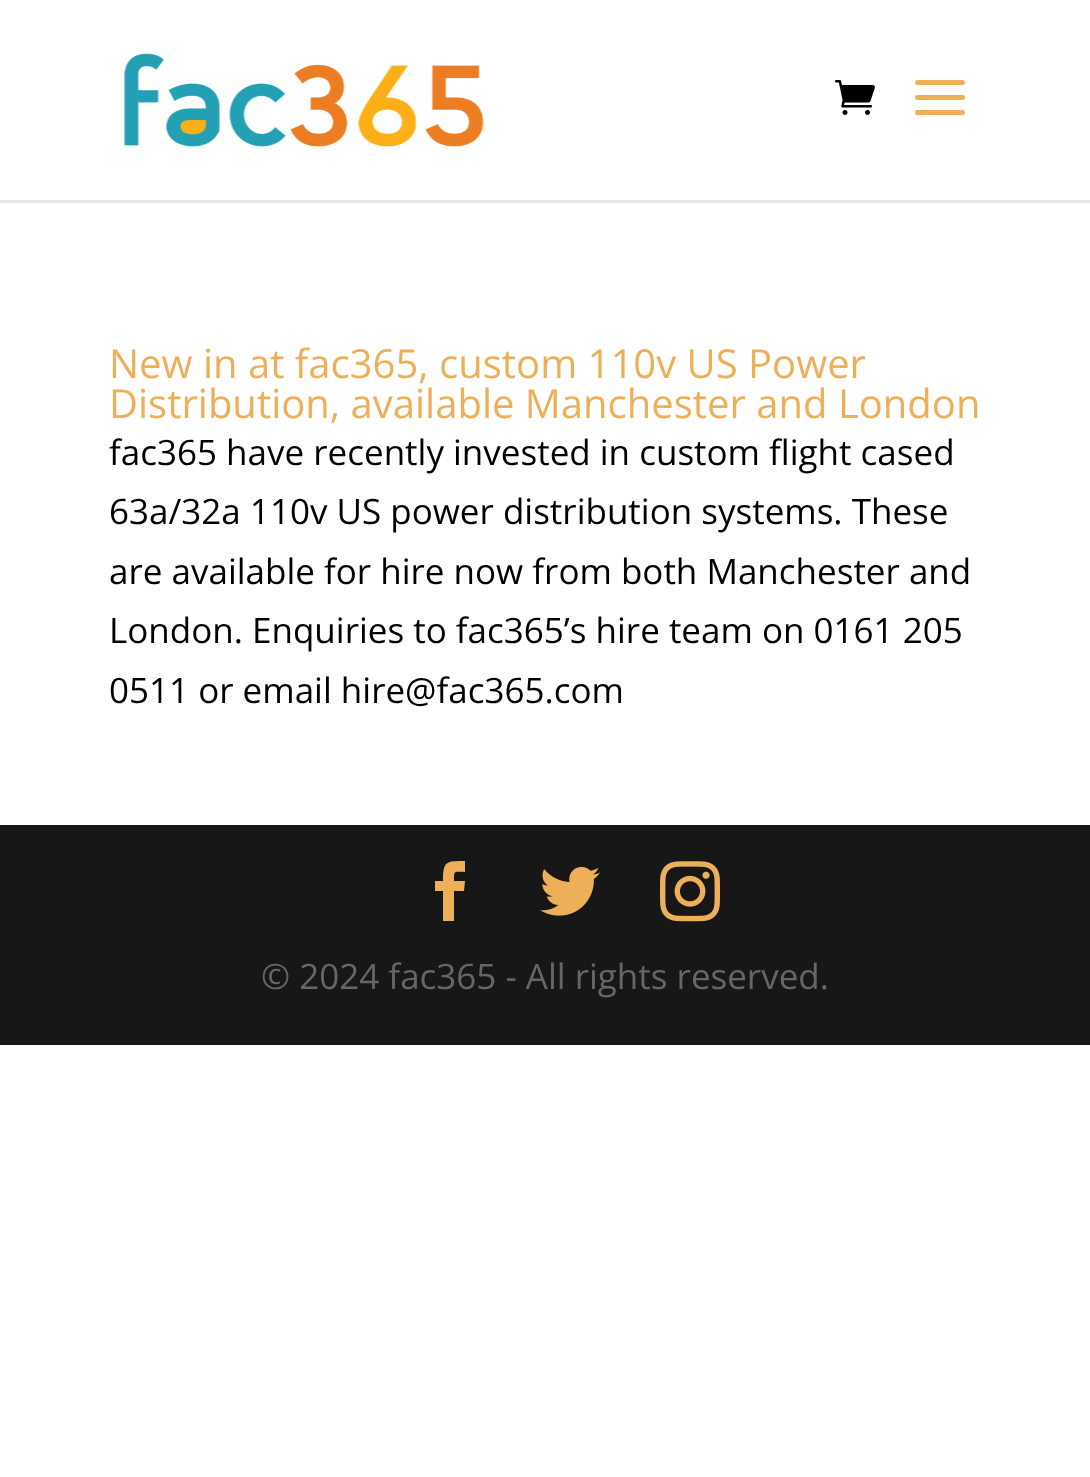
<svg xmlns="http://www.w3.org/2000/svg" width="1090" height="1477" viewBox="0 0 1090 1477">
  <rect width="100%" height="100%" fill="#fff"/>
  <path d="M0 200h1090v3H0z" fill="#e6e6e6"/>
  <image x="123" y="53" width="361" height="94" href="img/1.png"/>
  <image x="834" y="80" width="41" height="35" href="img/2.png"/>
  <image x="915" y="80" width="50" height="35" href="img/3.png"/>
  <path d="M0 825h1090v220H0z" fill="#171717"/>
  <path d="M443 921H454V891H464L465 881H454C454 870 454 872 465 872V861C446 861 443 861 443 881H435V891H443Z" fill="#edb059"/>
  <image x="540" y="866" width="60" height="50" href="img/4.png"/>
  <image x="660" y="861" width="60" height="61" href="img/5.png"/>
  <g font-family="Open Sans" font-size="40" fill="#edb059">
    <text x="109" y="378">New in at fac365, custom 110v US Power</text>
    <text x="109" y="418">Distribution, available Manchester and London</text>
  </g>
  <g font-family="Open Sans" font-size="35" fill="#000">
    <text x="109" y="465">fac365 have recently invested in custom flight cased</text>
    <text x="109" y="524">63a/32a 110v US power distribution systems. These</text>
    <text x="109" y="584">are available for hire now from both Manchester and</text>
    <text x="109" y="643">London. Enquiries to fac365’s hire team on 0161 205</text>
    <text x="109" y="703">0511 or email hire@fac365.com</text>
  </g>
  <text x="261" y="989" font-family="Open Sans" font-size="35" fill="#666">© 2024 fac365 - All rights reserved.</text>
</svg>
